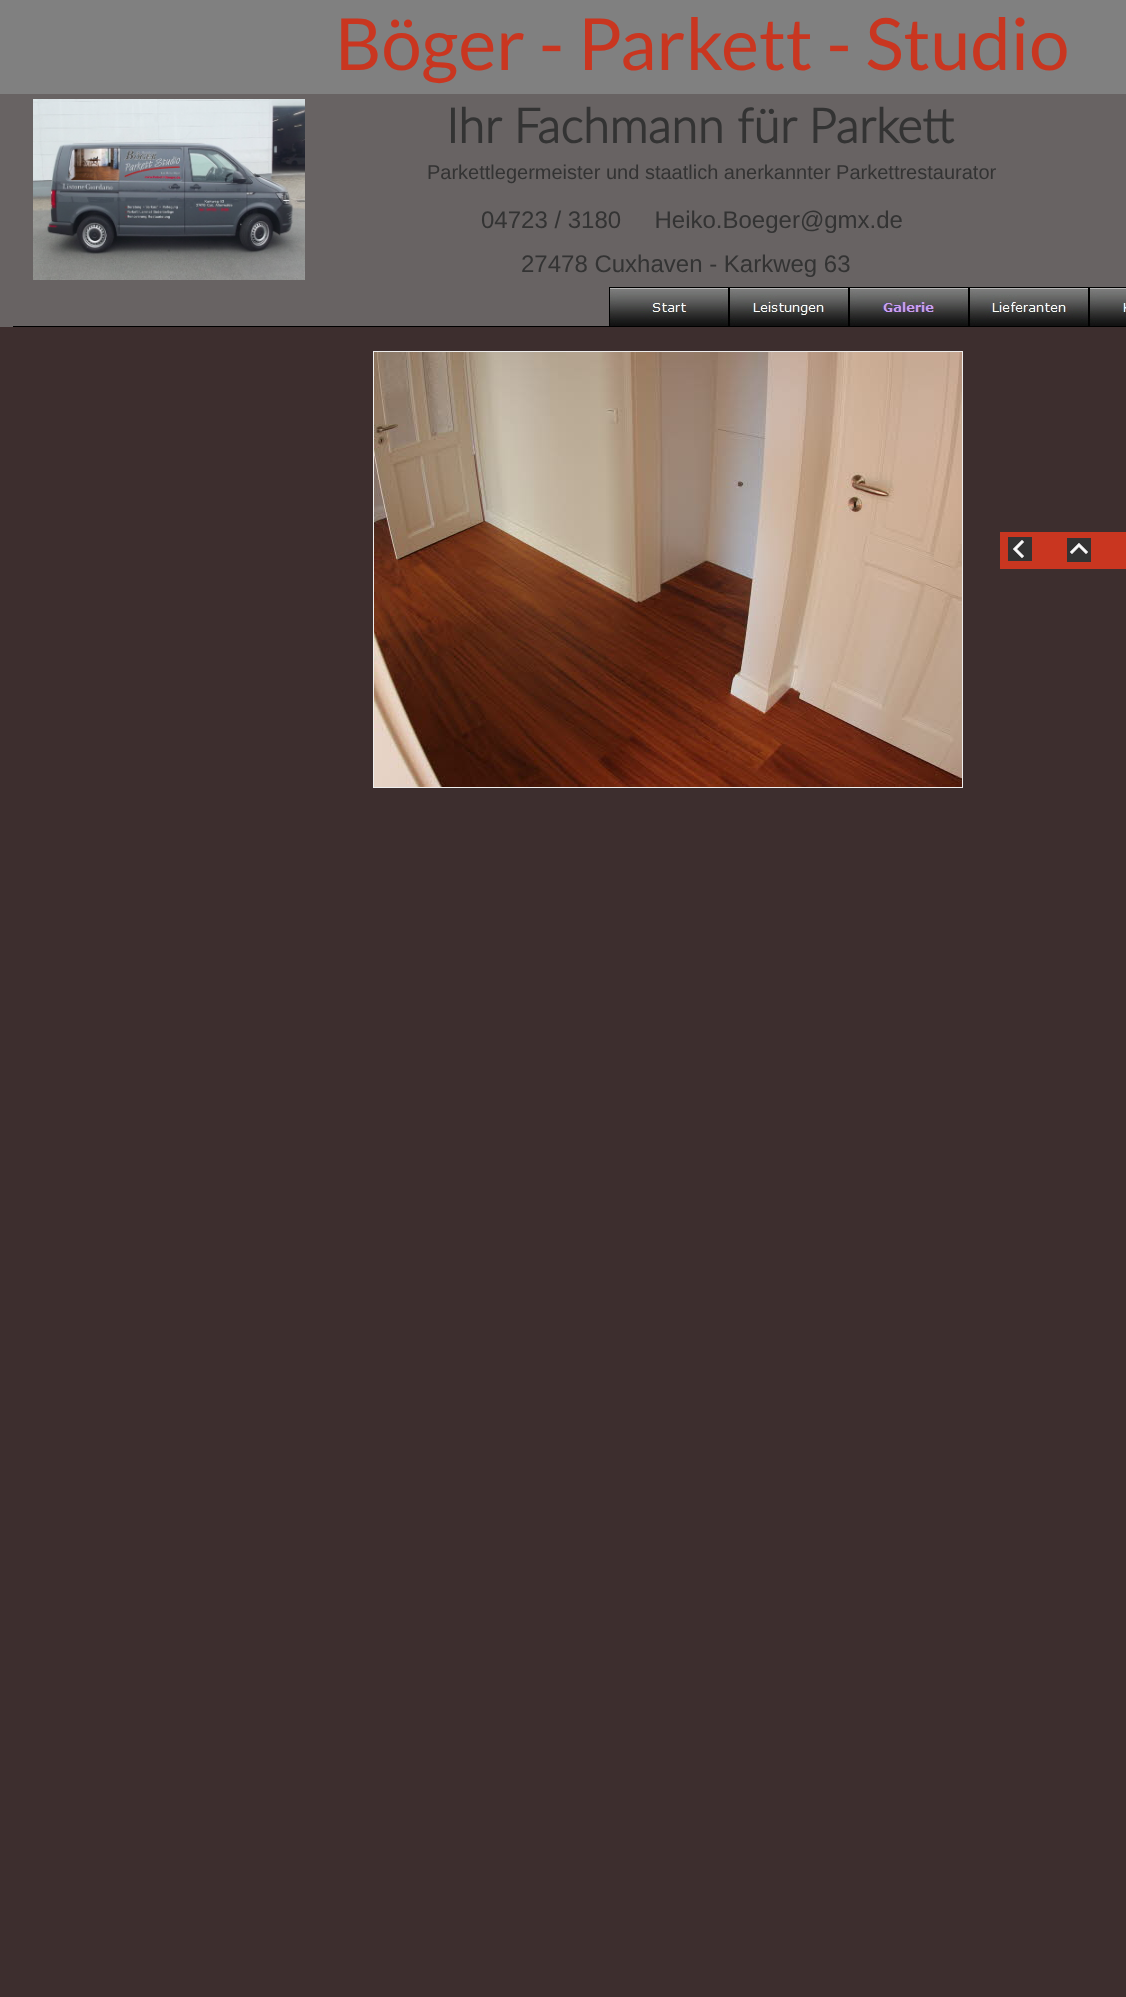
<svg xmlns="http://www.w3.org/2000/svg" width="1126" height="1997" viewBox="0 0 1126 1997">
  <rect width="100%" height="100%" fill="#3d2e2e"/>
  <path d="M0 0h1126v94H0z" fill="#808080"/>
  <path d="M0 94h1126v233H0z" fill="#686363"/>
  <image x="33" y="99" width="272" height="181" href="img/1.png"/>
  <image x="609" y="287" width="120" height="39" href="img/2.png"/>
  <image x="729" y="287" width="120" height="39" href="img/3.png"/>
  <image x="849" y="287" width="120" height="39" href="img/4.png"/>
  <image x="969" y="287" width="120" height="39" href="img/5.png"/>
  <image x="1089" y="287" width="37" height="39" href="img/6.png"/>
  <path d="M13 326h1113v1H13z" fill="#000"/>
  <path d="M373 351h590v1H373z" fill="#eee"/>
  <path d="M962 351h1v437H962z" fill="#eee"/>
  <path d="M373 787h590v1H373z" fill="#eee"/>
  <path d="M373 351h1v437H373z" fill="#eee"/>
  <image x="374" y="352" width="588" height="435" href="img/7.png"/>
  <path d="M1000 532h126v37H1000z" fill="#c93620"/>
  <image x="1008" y="537" width="24" height="24" href="img/8.png"/>
  <image x="1067" y="538" width="24" height="24" href="img/9.png"/>
  <text x="335" y="70" font-family="Lato" font-size="72" fill="#c93620">Böger - Parkett - Studio</text>
  <text x="446" y="143" font-family="Lato" font-size="48" font-weight="bold" fill="#333">Ihr Fachmann für Parkett</text>
  <text x="427" y="179" font-family="Liberation Sans" font-size="20" fill="#333">Parkettlegermeister und staatlich anerkannter Parkettrestaurator</text>
  <g font-family="Liberation Sans" font-size="24" fill="#333">
    <text x="481" y="228" xml:space="preserve">04723 / 3180     Heiko.Boeger@gmx.de</text>
    <text x="521" y="272">27478 Cuxhaven - Karkweg 63</text>
  </g>
</svg>
